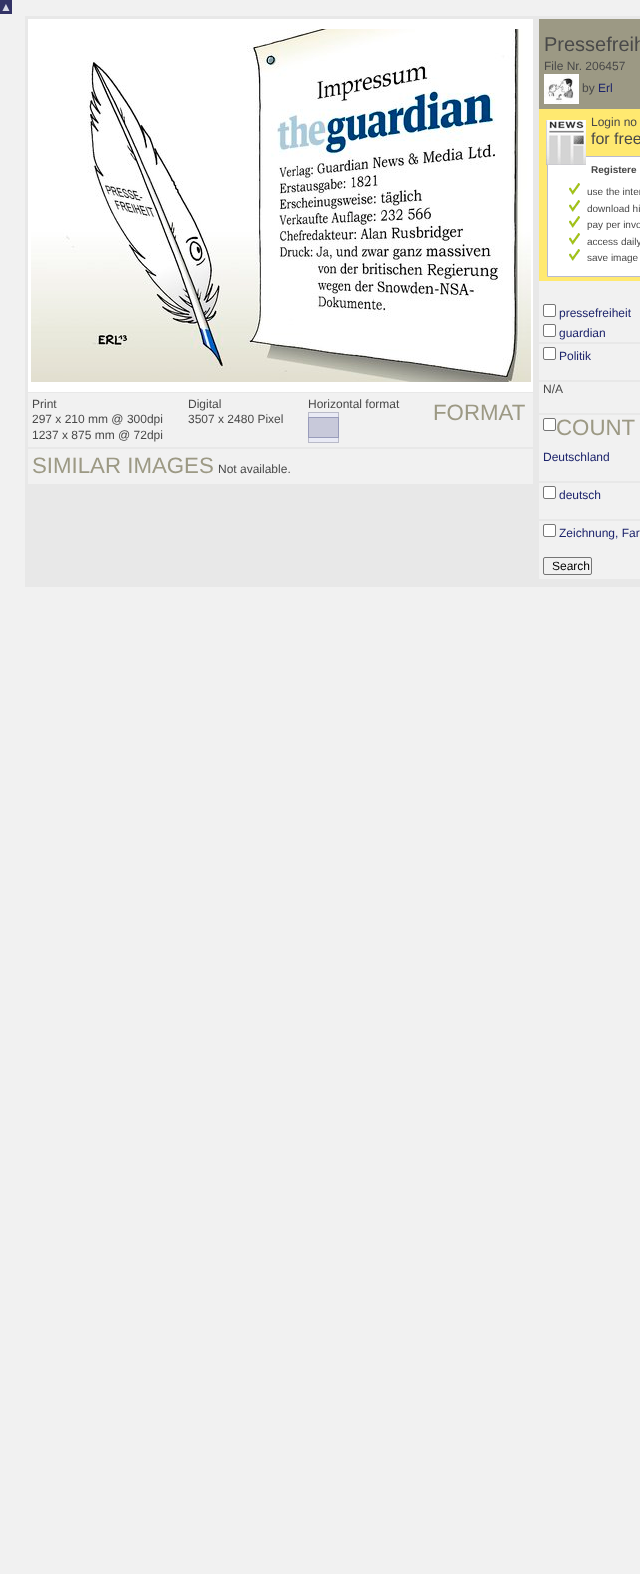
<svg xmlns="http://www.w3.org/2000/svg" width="640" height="1574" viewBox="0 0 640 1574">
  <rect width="100%" height="100%" fill="#f1f1f1"/>
  <path d="M0 0h12v14H0z" fill="#336"/>
  <path d="M25 16h615v571H25z" fill="#e8e8e8"/>
  <path d="M28 19h505v373H28z" fill="#fff"/>
  <image x="31" y="29" width="500" height="353" href="img/1.png"/>
  <path d="M28 393h505v54H28z" fill="#f1f1f1"/>
  <image x="308" y="412" width="31" height="31" href="img/2.png"/>
  <path d="M28 449h505v35H28z" fill="#f1f1f1"/>
  <path d="M539 19h101v90H539z" fill="#9c9984"/>
  <image x="544" y="74" width="35" height="30" href="img/3.png"/>
  <path d="M539 109h101v172H539z" fill="#ffe970"/>
  <path d="M547.5 156.5h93v120H547.5z" fill="#fff" stroke="#b9bbd0"/>
  <image x="546" y="120" width="40" height="45" href="img/4.png"/>
  <image x="569" y="183" width="11" height="12" href="img/5.png"/>
  <image x="569" y="200" width="11" height="12" href="img/5.png"/>
  <image x="569" y="216" width="11" height="12" href="img/5.png"/>
  <image x="569" y="233" width="11" height="12" href="img/5.png"/>
  <image x="569" y="249" width="11" height="12" href="img/5.png"/>
  <path d="M539 281h101v298H539z" fill="#f1f1f1"/>
  <rect x="543.5" y="304.5" width="12" height="12" rx="1.5" fill="#fff" stroke="#767676"/>
  <rect x="543.5" y="324.5" width="12" height="12" rx="1.5" fill="#fff" stroke="#767676"/>
  <path d="M539 342h101v2H539z" fill="#e8e8e8"/>
  <rect x="543.5" y="347.5" width="12" height="12" rx="1.5" fill="#fff" stroke="#767676"/>
  <path d="M539 380h101v2H539z" fill="#e8e8e8"/>
  <path d="M539 413h101v2H539z" fill="#e8e8e8"/>
  <rect x="543.5" y="418.5" width="12" height="12" rx="1.5" fill="#fff" stroke="#767676"/>
  <path d="M539 481h101v2H539z" fill="#e8e8e8"/>
  <rect x="543.5" y="486.5" width="12" height="12" rx="1.5" fill="#fff" stroke="#767676"/>
  <path d="M539 519h101v2H539z" fill="#e8e8e8"/>
  <rect x="543.5" y="524.5" width="12" height="12" rx="1.5" fill="#fff" stroke="#767676"/>
  <rect x="543.5" y="557.5" width="48" height="17" rx="1.5" fill="none" stroke="#767676"/>
  <text x="0" y="11" font-family="Liberation Sans" font-size="12" fill="#d8d9e5">▲</text>
  <g font-family="Liberation Sans" font-size="12" fill="#494949">
    <text x="32" y="408">Print</text>
    <text x="32" y="423">297 x 210 mm @ 300dpi</text>
    <text x="32" y="439">1237 x 875 mm @ 72dpi</text>
    <text x="188" y="408">Digital</text>
    <text x="188" y="423">3507 x 2480 Pixel</text>
    <text x="308" y="408">Horizontal format</text>
  </g>
  <g font-family="Liberation Sans" font-size="22.25" fill="#9c9984">
    <text x="433" y="420">FORMAT</text>
    <text x="32" y="473">SIMILAR IMAGES</text>
  </g>
  <text x="218" y="473" font-family="Liberation Sans" font-size="12" fill="#494949">Not available.</text>
  <text x="544" y="51" font-family="Liberation Sans" font-size="20" fill="#494949">Pressefreih</text>
  <g font-family="Liberation Sans" font-size="12" fill="#494949">
    <text x="544" y="70">File Nr. 206457</text>
    <text x="582" y="92">by</text>
  </g>
  <text x="598" y="92" font-family="Liberation Sans" font-size="12" fill="#1d246c">Erl</text>
  <text x="591" y="126" font-family="Liberation Sans" font-size="12" fill="#494949">Login no</text>
  <text x="591" y="144" font-family="Liberation Sans" font-size="16" fill="#494949">for free</text>
  <text x="591" y="173" font-family="Liberation Sans" font-size="10" font-weight="bold" fill="#494949">Registere</text>
  <g font-family="Liberation Sans" font-size="10" fill="#494949">
    <text x="587" y="195">use the inter</text>
    <text x="587" y="212">download hi</text>
    <text x="587" y="228">pay per invo</text>
    <text x="587" y="245">access daily</text>
    <text x="587" y="261">save image</text>
  </g>
  <g font-family="Liberation Sans" font-size="12" fill="#1d246c">
    <text x="559" y="317">pressefreiheit</text>
    <text x="559" y="337">guardian</text>
    <text x="559" y="360">Politik</text>
  </g>
  <text x="543" y="393" font-family="Liberation Sans" font-size="12" fill="#494949">N/A</text>
  <text x="556" y="435" font-family="Liberation Sans" font-size="22.25" fill="#9c9984">COUNT</text>
  <g font-family="Liberation Sans" font-size="12" fill="#1d246c">
    <text x="543" y="461">Deutschland</text>
    <text x="559" y="499">deutsch</text>
    <text x="559" y="537">Zeichnung, Far</text>
  </g>
  <text x="552" y="570" font-family="Liberation Sans" font-size="12" fill="#000">Search</text>
</svg>
